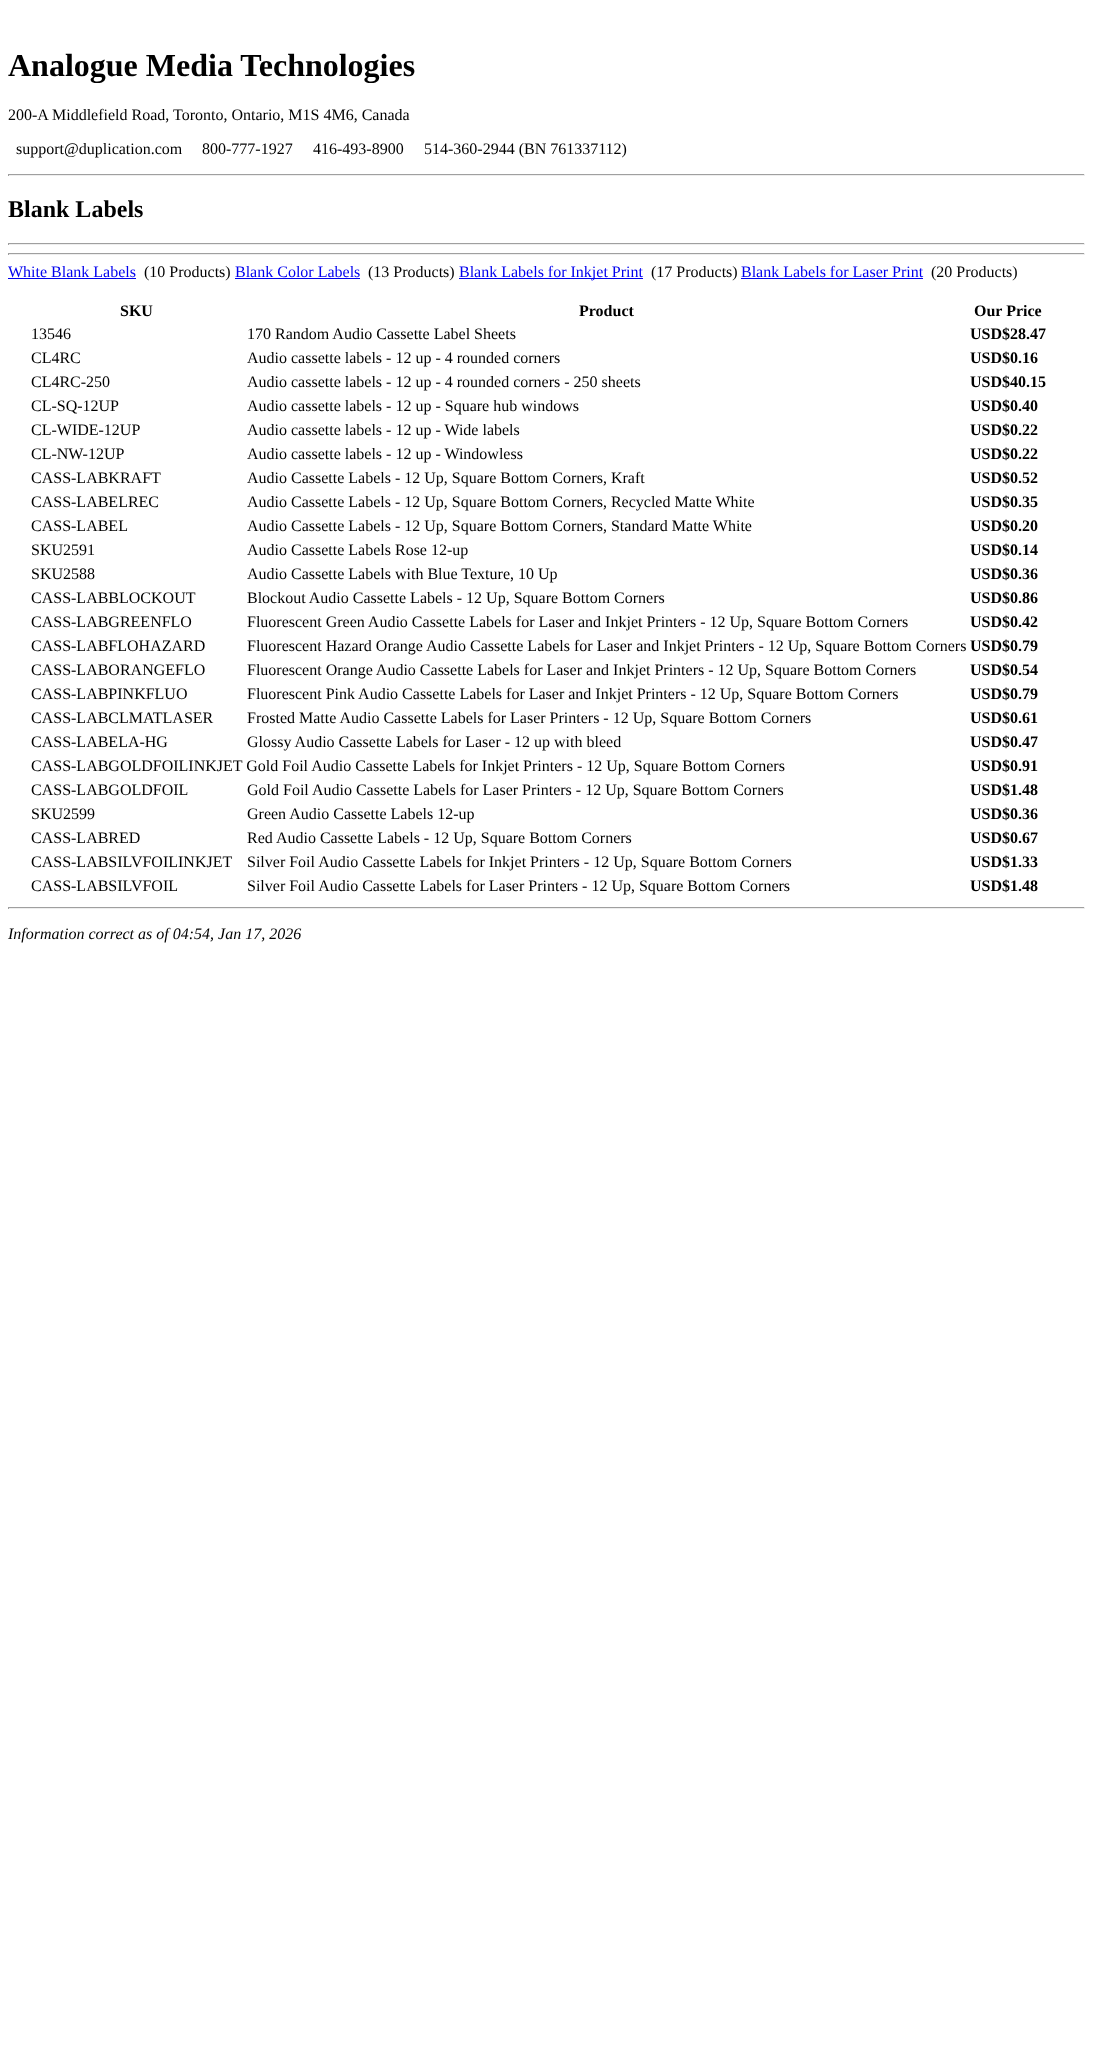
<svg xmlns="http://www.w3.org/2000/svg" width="1093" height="2063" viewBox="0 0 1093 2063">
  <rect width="100%" height="100%" fill="#fff"/>
  <path d="M8 174h1077v1H8z" fill="#9f9f9f"/>
  <path d="M1084 174h1v2H1084z" fill="#eee"/>
  <path d="M8 175h1077v1H8z" fill="#eee"/>
  <path d="M8 174h1v2H8z" fill="#9f9f9f"/>
  <path d="M8 243h1077v1H8z" fill="#9f9f9f"/>
  <path d="M1084 243h1v2H1084z" fill="#eee"/>
  <path d="M8 244h1077v1H8z" fill="#eee"/>
  <path d="M8 243h1v2H8z" fill="#9f9f9f"/>
  <path d="M8 253h1077v1H8z" fill="#9f9f9f"/>
  <path d="M1084 253h1v2H1084z" fill="#eee"/>
  <path d="M8 254h1077v1H8z" fill="#eee"/>
  <path d="M8 253h1v2H8z" fill="#9f9f9f"/>
  <path d="M8 278h128v1H8z" fill="#00e"/>
  <path d="M235 278h125v1H235z" fill="#00e"/>
  <path d="M459 278h184v1H459z" fill="#00e"/>
  <path d="M741 278h182v1H741z" fill="#00e"/>
  <path d="M8 907h1077v1H8z" fill="#9f9f9f"/>
  <path d="M1084 907h1v2H1084z" fill="#eee"/>
  <path d="M8 908h1077v1H8z" fill="#eee"/>
  <path d="M8 907h1v2H8z" fill="#9f9f9f"/>
  <text x="8" y="76" font-family="Liberation Serif" font-size="32" font-weight="bold" fill="#000">Analogue Media Technologies</text>
  <g font-family="Liberation Serif" font-size="16" fill="#000">
    <text x="8" y="120">200-A Middlefield Road, Toronto, Ontario, M1S 4M6, Canada</text>
    <text x="16" y="154">support@duplication.com</text>
    <text x="202" y="154">800-777-1927</text>
    <text x="313" y="154">416-493-8900</text>
    <text x="424" y="154">514-360-2944 (BN 761337112)</text>
  </g>
  <text x="8" y="217" font-family="Liberation Serif" font-size="24" font-weight="bold" fill="#000">Blank Labels</text>
  <text x="8" y="277" font-family="Liberation Serif" font-size="16" fill="#00e">White Blank Labels</text>
  <text x="144" y="277" font-family="Liberation Serif" font-size="16" fill="#000">(10 Products)</text>
  <text x="235" y="277" font-family="Liberation Serif" font-size="16" fill="#00e">Blank Color Labels</text>
  <text x="368" y="277" font-family="Liberation Serif" font-size="16" fill="#000">(13 Products)</text>
  <text x="459" y="277" font-family="Liberation Serif" font-size="16" fill="#00e">Blank Labels for Inkjet Print</text>
  <text x="651" y="277" font-family="Liberation Serif" font-size="16" fill="#000">(17 Products)</text>
  <text x="741" y="277" font-family="Liberation Serif" font-size="16" fill="#00e">Blank Labels for Laser Print</text>
  <text x="931" y="277" font-family="Liberation Serif" font-size="16" fill="#000">(20 Products)</text>
  <g font-family="Liberation Serif" font-size="16" font-weight="bold" fill="#000">
    <text x="120" y="316">SKU</text>
    <text x="579" y="316">Product</text>
    <text x="974" y="316">Our Price</text>
  </g>
  <g font-family="Liberation Serif" font-size="16" fill="#000">
    <text x="31" y="339">13546</text>
    <text x="247" y="339">170 Random Audio Cassette Label Sheets</text>
  </g>
  <text x="970" y="339" font-family="Liberation Serif" font-size="16" font-weight="bold" fill="#000">USD$28.47</text>
  <g font-family="Liberation Serif" font-size="16" fill="#000">
    <text x="31" y="363">CL4RC</text>
    <text x="247" y="363">Audio cassette labels - 12 up - 4 rounded corners</text>
  </g>
  <text x="970" y="363" font-family="Liberation Serif" font-size="16" font-weight="bold" fill="#000">USD$0.16</text>
  <g font-family="Liberation Serif" font-size="16" fill="#000">
    <text x="31" y="387">CL4RC-250</text>
    <text x="247" y="387">Audio cassette labels - 12 up - 4 rounded corners - 250 sheets</text>
  </g>
  <text x="970" y="387" font-family="Liberation Serif" font-size="16" font-weight="bold" fill="#000">USD$40.15</text>
  <g font-family="Liberation Serif" font-size="16" fill="#000">
    <text x="31" y="411">CL-SQ-12UP</text>
    <text x="247" y="411">Audio cassette labels - 12 up - Square hub windows</text>
  </g>
  <text x="970" y="411" font-family="Liberation Serif" font-size="16" font-weight="bold" fill="#000">USD$0.40</text>
  <g font-family="Liberation Serif" font-size="16" fill="#000">
    <text x="31" y="435">CL-WIDE-12UP</text>
    <text x="247" y="435">Audio cassette labels - 12 up - Wide labels</text>
  </g>
  <text x="970" y="435" font-family="Liberation Serif" font-size="16" font-weight="bold" fill="#000">USD$0.22</text>
  <g font-family="Liberation Serif" font-size="16" fill="#000">
    <text x="31" y="459">CL-NW-12UP</text>
    <text x="247" y="459">Audio cassette labels - 12 up - Windowless</text>
  </g>
  <text x="970" y="459" font-family="Liberation Serif" font-size="16" font-weight="bold" fill="#000">USD$0.22</text>
  <g font-family="Liberation Serif" font-size="16" fill="#000">
    <text x="31" y="483">CASS-LABKRAFT</text>
    <text x="247" y="483">Audio Cassette Labels - 12 Up, Square Bottom Corners, Kraft</text>
  </g>
  <text x="970" y="483" font-family="Liberation Serif" font-size="16" font-weight="bold" fill="#000">USD$0.52</text>
  <g font-family="Liberation Serif" font-size="16" fill="#000">
    <text x="31" y="507">CASS-LABELREC</text>
    <text x="247" y="507">Audio Cassette Labels - 12 Up, Square Bottom Corners, Recycled Matte White</text>
  </g>
  <text x="970" y="507" font-family="Liberation Serif" font-size="16" font-weight="bold" fill="#000">USD$0.35</text>
  <g font-family="Liberation Serif" font-size="16" fill="#000">
    <text x="31" y="531">CASS-LABEL</text>
    <text x="247" y="531">Audio Cassette Labels - 12 Up, Square Bottom Corners, Standard Matte White</text>
  </g>
  <text x="970" y="531" font-family="Liberation Serif" font-size="16" font-weight="bold" fill="#000">USD$0.20</text>
  <g font-family="Liberation Serif" font-size="16" fill="#000">
    <text x="31" y="555">SKU2591</text>
    <text x="247" y="555">Audio Cassette Labels Rose 12-up</text>
  </g>
  <text x="970" y="555" font-family="Liberation Serif" font-size="16" font-weight="bold" fill="#000">USD$0.14</text>
  <g font-family="Liberation Serif" font-size="16" fill="#000">
    <text x="31" y="579">SKU2588</text>
    <text x="247" y="579">Audio Cassette Labels with Blue Texture, 10 Up</text>
  </g>
  <text x="970" y="579" font-family="Liberation Serif" font-size="16" font-weight="bold" fill="#000">USD$0.36</text>
  <g font-family="Liberation Serif" font-size="16" fill="#000">
    <text x="31" y="603">CASS-LABBLOCKOUT</text>
    <text x="247" y="603">Blockout Audio Cassette Labels - 12 Up, Square Bottom Corners</text>
  </g>
  <text x="970" y="603" font-family="Liberation Serif" font-size="16" font-weight="bold" fill="#000">USD$0.86</text>
  <g font-family="Liberation Serif" font-size="16" fill="#000">
    <text x="31" y="627">CASS-LABGREENFLO</text>
    <text x="247" y="627">Fluorescent Green Audio Cassette Labels for Laser and Inkjet Printers - 12 Up, Square Bottom Corners</text>
  </g>
  <text x="970" y="627" font-family="Liberation Serif" font-size="16" font-weight="bold" fill="#000">USD$0.42</text>
  <g font-family="Liberation Serif" font-size="16" fill="#000">
    <text x="31" y="651">CASS-LABFLOHAZARD</text>
    <text x="247" y="651">Fluorescent Hazard Orange Audio Cassette Labels for Laser and Inkjet Printers - 12 Up, Square Bottom Corners</text>
  </g>
  <text x="970" y="651" font-family="Liberation Serif" font-size="16" font-weight="bold" fill="#000">USD$0.79</text>
  <g font-family="Liberation Serif" font-size="16" fill="#000">
    <text x="31" y="675">CASS-LABORANGEFLO</text>
    <text x="247" y="675">Fluorescent Orange Audio Cassette Labels for Laser and Inkjet Printers - 12 Up, Square Bottom Corners</text>
  </g>
  <text x="970" y="675" font-family="Liberation Serif" font-size="16" font-weight="bold" fill="#000">USD$0.54</text>
  <g font-family="Liberation Serif" font-size="16" fill="#000">
    <text x="31" y="699">CASS-LABPINKFLUO</text>
    <text x="247" y="699">Fluorescent Pink Audio Cassette Labels for Laser and Inkjet Printers - 12 Up, Square Bottom Corners</text>
  </g>
  <text x="970" y="699" font-family="Liberation Serif" font-size="16" font-weight="bold" fill="#000">USD$0.79</text>
  <g font-family="Liberation Serif" font-size="16" fill="#000">
    <text x="31" y="723">CASS-LABCLMATLASER</text>
    <text x="247" y="723">Frosted Matte Audio Cassette Labels for Laser Printers - 12 Up, Square Bottom Corners</text>
  </g>
  <text x="970" y="723" font-family="Liberation Serif" font-size="16" font-weight="bold" fill="#000">USD$0.61</text>
  <g font-family="Liberation Serif" font-size="16" fill="#000">
    <text x="31" y="747">CASS-LABELA-HG</text>
    <text x="247" y="747">Glossy Audio Cassette Labels for Laser - 12 up with bleed</text>
  </g>
  <text x="970" y="747" font-family="Liberation Serif" font-size="16" font-weight="bold" fill="#000">USD$0.47</text>
  <text x="31" y="771" font-family="Liberation Serif" font-size="16" fill="#000">CASS-LABGOLDFOILINKJET Gold Foil Audio Cassette Labels for Inkjet Printers - 12 Up, Square Bottom Corners</text>
  <text x="970" y="771" font-family="Liberation Serif" font-size="16" font-weight="bold" fill="#000">USD$0.91</text>
  <g font-family="Liberation Serif" font-size="16" fill="#000">
    <text x="31" y="795">CASS-LABGOLDFOIL</text>
    <text x="247" y="795">Gold Foil Audio Cassette Labels for Laser Printers - 12 Up, Square Bottom Corners</text>
  </g>
  <text x="970" y="795" font-family="Liberation Serif" font-size="16" font-weight="bold" fill="#000">USD$1.48</text>
  <g font-family="Liberation Serif" font-size="16" fill="#000">
    <text x="31" y="819">SKU2599</text>
    <text x="247" y="819">Green Audio Cassette Labels 12-up</text>
  </g>
  <text x="970" y="819" font-family="Liberation Serif" font-size="16" font-weight="bold" fill="#000">USD$0.36</text>
  <g font-family="Liberation Serif" font-size="16" fill="#000">
    <text x="31" y="843">CASS-LABRED</text>
    <text x="247" y="843">Red Audio Cassette Labels - 12 Up, Square Bottom Corners</text>
  </g>
  <text x="970" y="843" font-family="Liberation Serif" font-size="16" font-weight="bold" fill="#000">USD$0.67</text>
  <g font-family="Liberation Serif" font-size="16" fill="#000">
    <text x="31" y="867">CASS-LABSILVFOILINKJET</text>
    <text x="247" y="867">Silver Foil Audio Cassette Labels for Inkjet Printers - 12 Up, Square Bottom Corners</text>
  </g>
  <text x="970" y="867" font-family="Liberation Serif" font-size="16" font-weight="bold" fill="#000">USD$1.33</text>
  <g font-family="Liberation Serif" font-size="16" fill="#000">
    <text x="31" y="891">CASS-LABSILVFOIL</text>
    <text x="247" y="891">Silver Foil Audio Cassette Labels for Laser Printers - 12 Up, Square Bottom Corners</text>
  </g>
  <text x="970" y="891" font-family="Liberation Serif" font-size="16" font-weight="bold" fill="#000">USD$1.48</text>
  <text x="8" y="939" font-family="Liberation Serif" font-size="16" font-style="italic" fill="#000">Information correct as of 04:54, Jan 17, 2026</text>
</svg>
